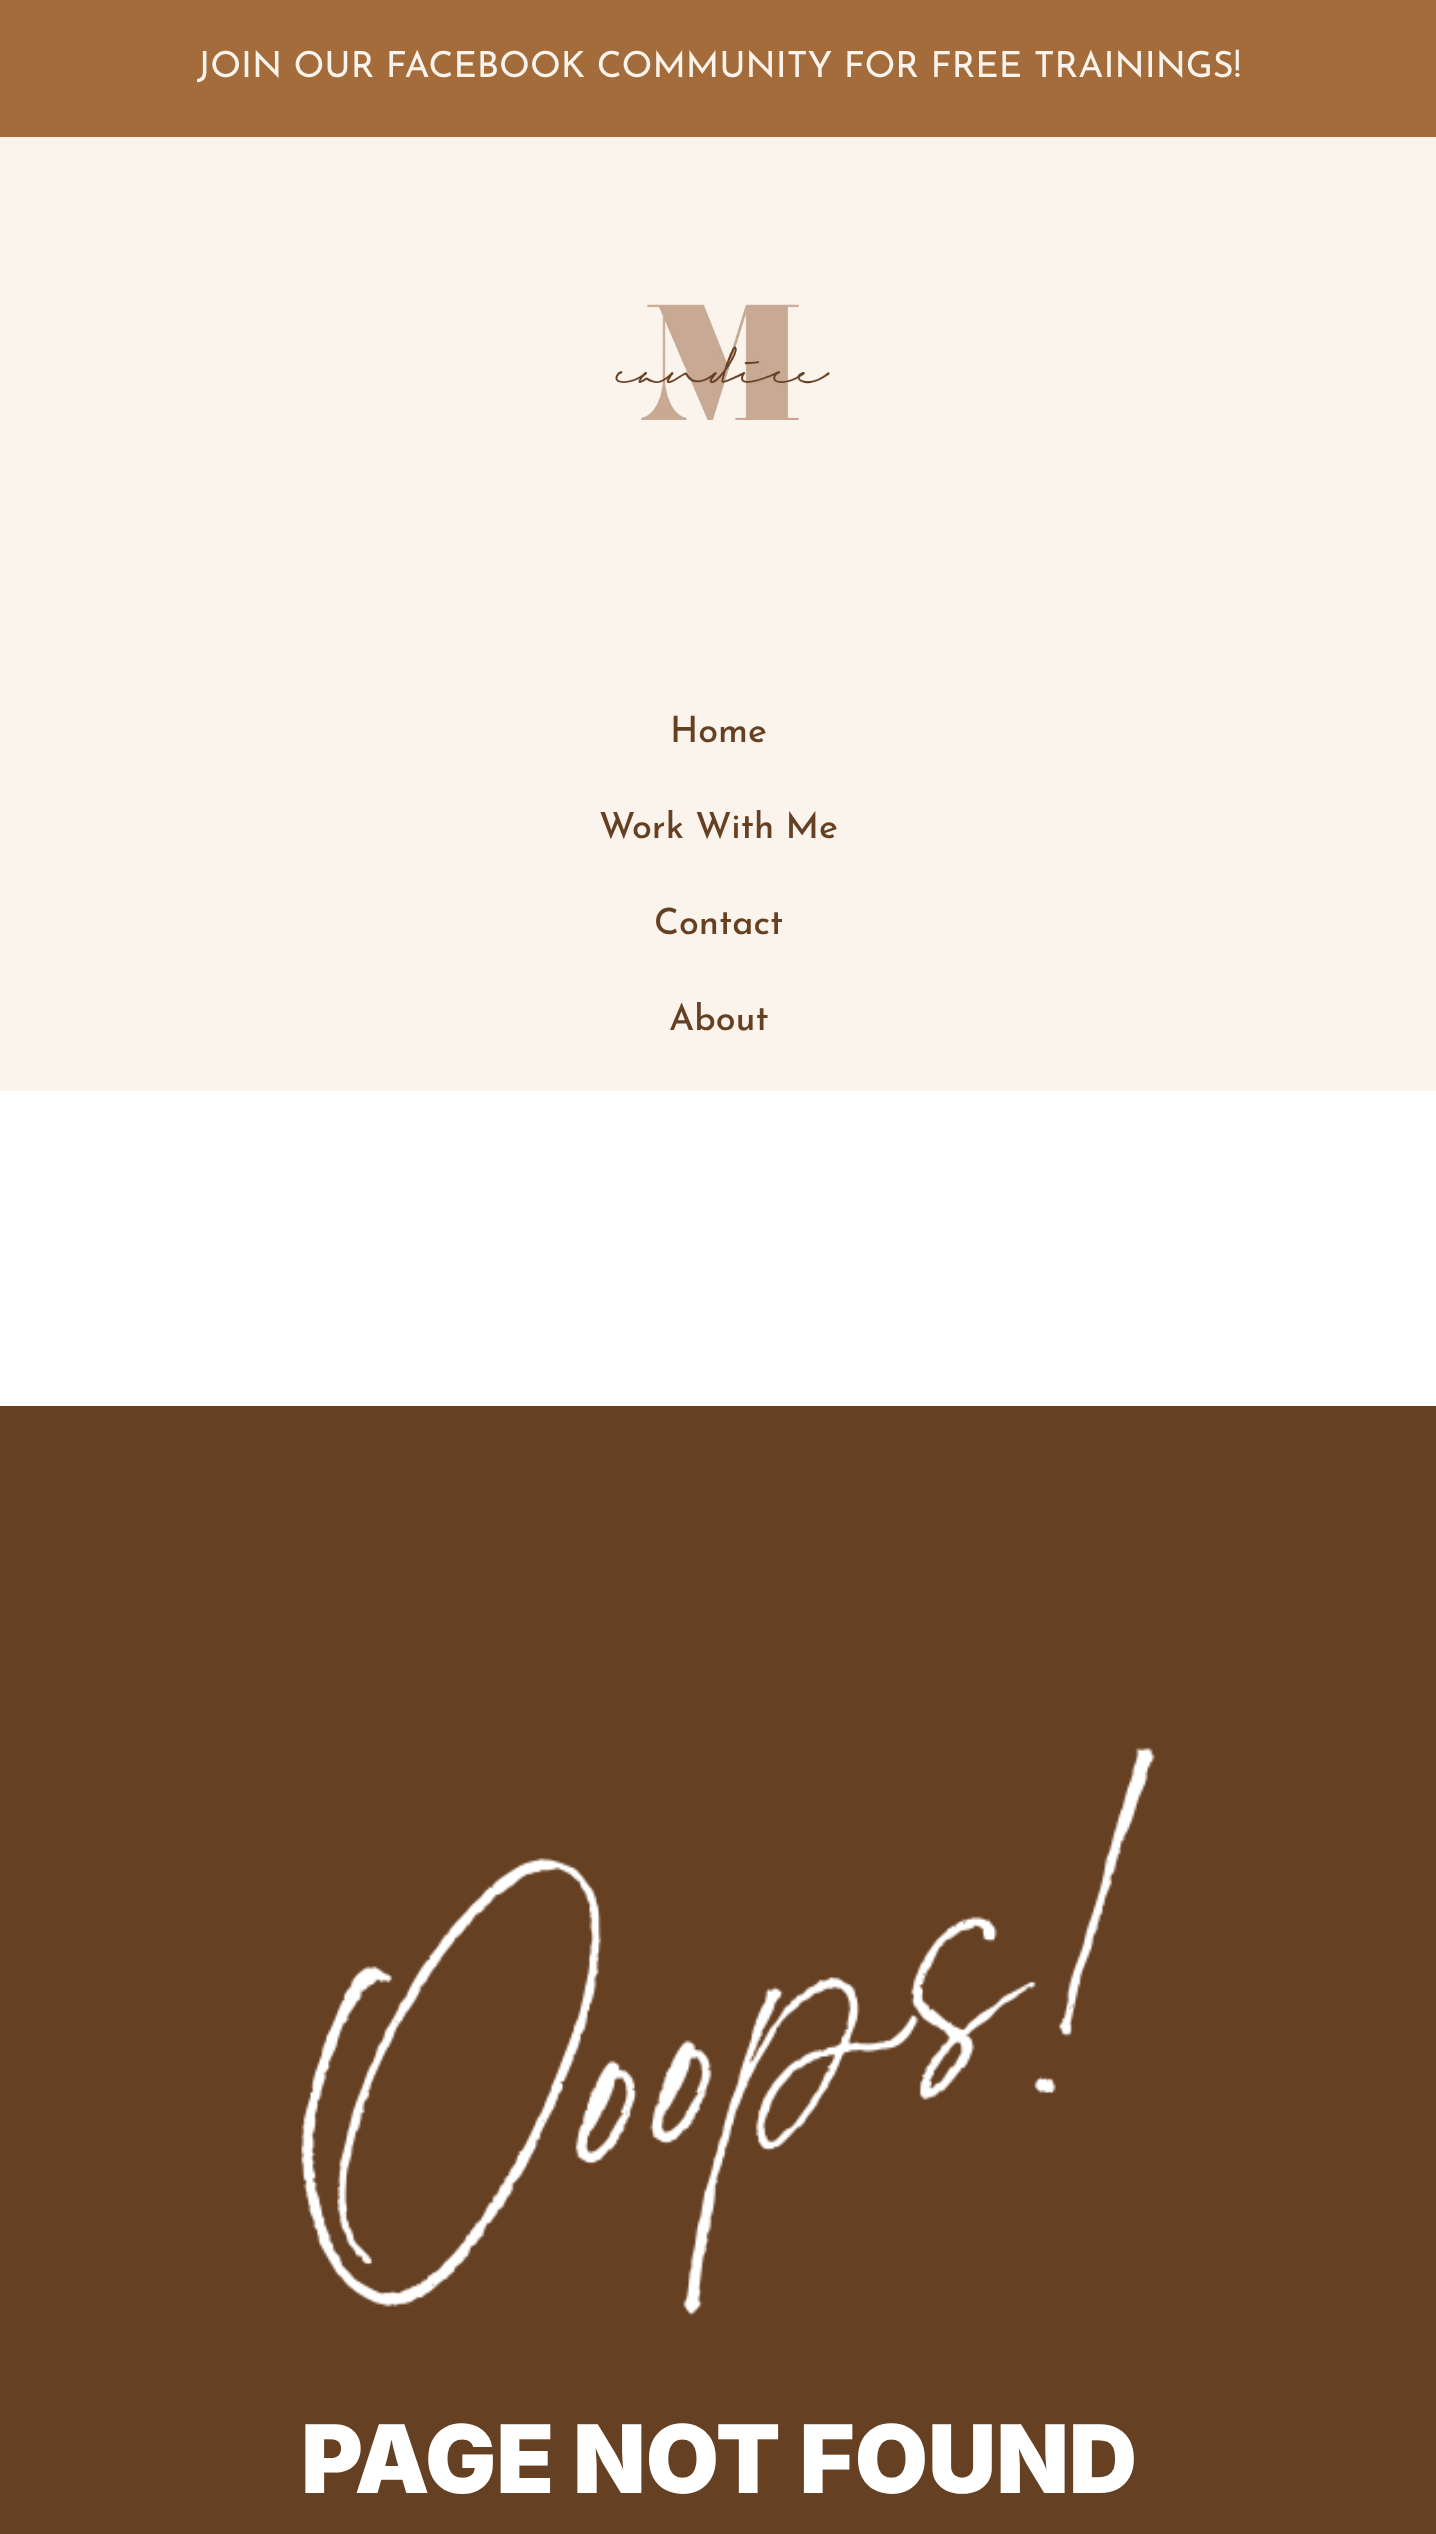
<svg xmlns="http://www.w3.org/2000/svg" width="1436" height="2534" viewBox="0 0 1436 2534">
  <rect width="100%" height="100%" fill="#fff"/>
  <path d="M0 0h1436v137H0z" fill="#a46c3b"/>
  <path d="M0 137h1436v954H0z" fill="#fbf4ec"/>
  <image x="615" y="304" width="215" height="116" href="img/1.png"/>
  <path d="M0 1406h1436v1128H0z" fill="#664023"/>
  <image x="301" y="1747" width="854" height="569" href="img/2.png"/>
  <text x="197" y="77" font-family="Josefin Sans" font-size="36" fill="#fbf4ec">JOIN OUR FACEBOOK COMMUNITY FOR FREE TRAININGS!</text>
  <g font-family="Josefin Sans" font-size="36" font-weight="500" fill="#664023">
    <text x="670" y="742">Home</text>
    <text x="599" y="838">Work With Me</text>
    <text x="654" y="934">Contact</text>
    <text x="669" y="1030">About</text>
  </g>
  <text x="301" y="2493" font-family="Inter" font-size="94.5" font-weight="900" fill="#fff">PAGE NOT FOUND</text>
</svg>
